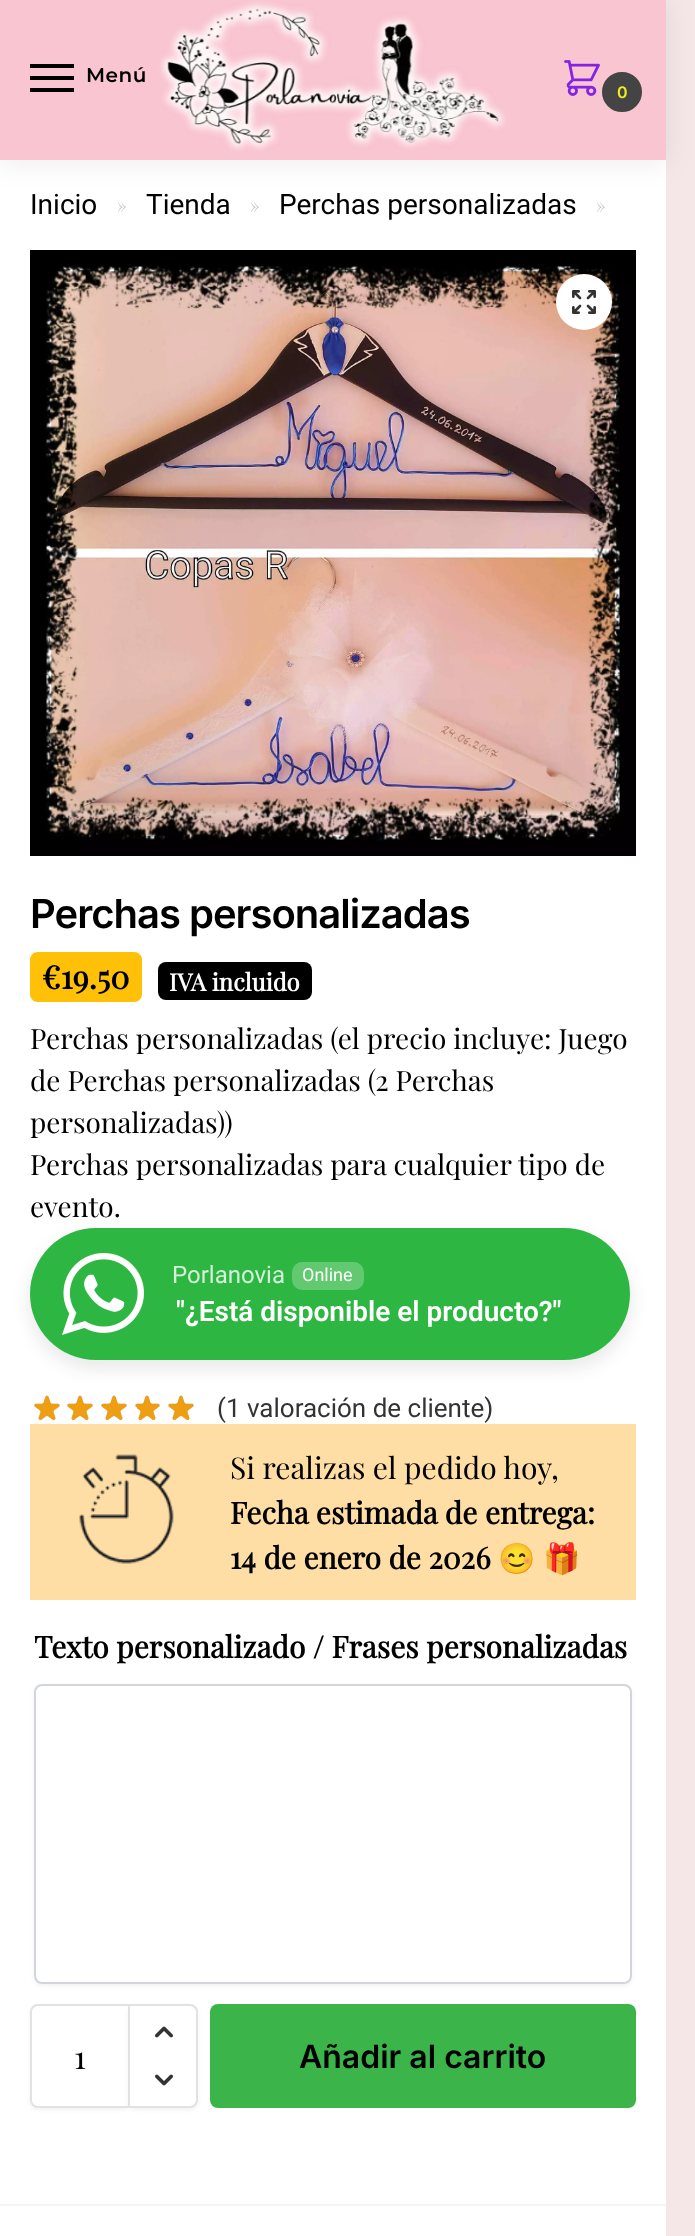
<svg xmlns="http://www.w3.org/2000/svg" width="695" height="2236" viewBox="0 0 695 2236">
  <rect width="100%" height="100%" fill="#f5e6e8"/>
  <path d="M0 160h666v2076H0z" fill="#fff"/>
  <path d="M0 2h666v160H0z" fill="#00000014" filter="blur(15px)"/>
  <path d="M0 0h666v160H0z" fill="#f9c5d1"/>
  <path d="M30 64h44v4H30z" fill="#000"/>
  <path d="M30 76h44v4H30z" fill="#000"/>
  <path d="M30 88h44v4H30z" fill="#000"/>
  <image x="159" y="1" width="347" height="150" href="img/1.png"/>
  <image x="564" y="60" width="36" height="36" href="img/2.png"/>
  <circle cx="622" cy="92" r="19" fill="#444" stroke="#444" stroke-width="2"/>
  <image x="30" y="250" width="606" height="606" href="img/3.png"/>
  <circle cx="584" cy="302" r="28" fill="#fff"/>
  <image x="572" y="290" width="24" height="24" href="img/4.png"/>
  <path d="M38 952H60V1002H38C33.5 1002 30 998.5 30 994V960C30 955.5 33.5 952 38 952Z" fill="#ffc107"/>
  <path d="M60 952H134C138.5 952 142 955.5 142 960V994C142 998.5 138.5 1002 134 1002H60Z" fill="#ffc107"/>
  <rect x="158" y="962" width="154" height="38" rx="8" fill="#000"/>
  <rect x="28" y="1234" width="604" height="136" rx="68" fill="#20202517" filter="blur(8px)"/>
  <rect x="30" y="1228" width="600" height="132" rx="66" fill="#2db742"/>
  <image x="62" y="1253" width="82" height="82" href="img/5.png"/>
  <rect x="292" y="1262" width="72" height="28" rx="10" fill="#62c971"/>
  <image x="34" y="1395" width="160" height="25" href="img/6.png"/>
  <image x="34" y="1395" width="160" height="25" href="img/7.png"/>
  <path d="M30 1424h606v176H30z" fill="#ffdea5"/>
  <image x="79" y="1454" width="95" height="110" href="img/8.png"/>
  <rect x="34" y="1686" width="598" height="300" rx="8" fill="#0000000d" filter="blur(2px)"/>
  <rect x="35" y="1685" width="596" height="298" rx="7" fill="#fff" stroke="#d2d6dc" stroke-width="2"/>
  <rect x="30" y="2006" width="100" height="104" rx="8" fill="#0000000d" filter="blur(2px)"/>
  <path d="M38 2005H129V2107H38C34 2107 31 2104 31 2100V2012C31 2008 34 2005 38 2005Z" fill="#fff" stroke="#e2e2e2" stroke-width="2"/>
  <rect x="128" y="2006" width="70" height="104" rx="8" fill="#0000000d" filter="blur(2px)"/>
  <path d="M129 2005H190C194 2005 197 2008 197 2012V2100C197 2104 194 2107 190 2107H129Z" fill="#fff" stroke="#e2e2e2" stroke-width="2"/>
  <image x="155" y="2026" width="18" height="12" href="img/9.png"/>
  <image x="155" y="2074" width="18" height="12" href="img/10.png"/>
  <rect x="210" y="2004" width="426" height="104" rx="8" fill="#3bb54a"/>
  <path d="M0 2204h666v2H0z" fill="#f5f5f5"/>
  <text x="86" y="82" font-family="Montserrat" font-size="20" font-weight="600" letter-spacing="0.5" fill="#000">Menú</text>
  <text x="617" y="98" font-family="Inter" font-size="16" font-weight="600" fill="#ee2">0</text>
  <text x="30" y="214" font-family="Roboto" font-size="28" fill="#000">Inicio</text>
  <text x="117" y="212" font-family="Playfair Display" font-size="19" fill="#c2c2c2">»</text>
  <text x="146" y="214" font-family="Roboto" font-size="28" fill="#000">Tienda</text>
  <text x="250" y="212" font-family="Playfair Display" font-size="19" fill="#c2c2c2">»</text>
  <text x="279" y="214" font-family="Roboto" font-size="28" fill="#000">Perchas personalizadas</text>
  <text x="596" y="212" font-family="Playfair Display" font-size="19" fill="#c2c2c2">»</text>
  <text x="30" y="928" font-family="Inter" font-size="40" font-weight="600" letter-spacing="-1" fill="#000">Perchas personalizadas</text>
  <text x="42" y="989" font-family="Playfair Display" font-size="32" font-weight="bold" fill="#000">€19.50</text>
  <text x="169" y="991" font-family="Playfair Display" font-size="24" font-weight="bold" fill="#fff">IVA incluido</text>
  <g font-family="Playfair Display" font-size="28" fill="#000">
    <text x="30" y="1049">Perchas personalizadas (el precio incluye: Juego</text>
    <text x="30" y="1091">de Perchas personalizadas (2 Perchas</text>
    <text x="30" y="1133">personalizadas))</text>
    <text x="30" y="1175">Perchas personalizadas para cualquier tipo de</text>
    <text x="30" y="1217">evento.</text>
  </g>
  <text x="172" y="1283" font-family="Roboto" font-size="24" fill="#d5f0d9">Porlanovia</text>
  <text x="302" y="1281" font-family="Roboto" font-size="18" fill="#fff">Online</text>
  <text x="176" y="1321" font-family="Roboto" font-size="28" font-weight="600" fill="#fff">"¿Está disponible el producto?"</text>
  <text x="217" y="1417" font-family="Roboto" font-size="26" fill="#333">(1 valoración de cliente)</text>
  <text x="230" y="1479" font-family="Playfair Display" font-size="30" fill="#000">Si realizas el pedido hoy,</text>
  <g font-family="Playfair Display" font-size="30" font-weight="bold" fill="#000">
    <text x="230" y="1524">Fecha estimada de entrega:</text>
    <text x="230" y="1569">14 de enero de 2026</text>
  </g>
  <g font-family="Noto Color Emoji" font-size="30" fill="#000">
    <text x="498" y="1569">😊</text>
    <text x="543" y="1569">🎁</text>
  </g>
  <text x="34" y="1658" font-family="Playfair Display" font-size="30" font-weight="bold" fill="#000">Texto personalizado / Frases personalizadas</text>
  <text x="74" y="2069" font-family="Playfair Display" font-size="32" fill="#000">1</text>
  <text x="299" y="2068" font-family="Inter" font-size="32" font-weight="600" fill="#000">Añadir al carrito</text>
  <path d="M412 2044C416 2040 422 2038 427.5 2039.5C447.5 2043.5 444.5 2073 424 2073C419.5 2073 415 2071 412 2068" fill="none" stroke="#3bb54a" stroke-width="2"/>
</svg>
